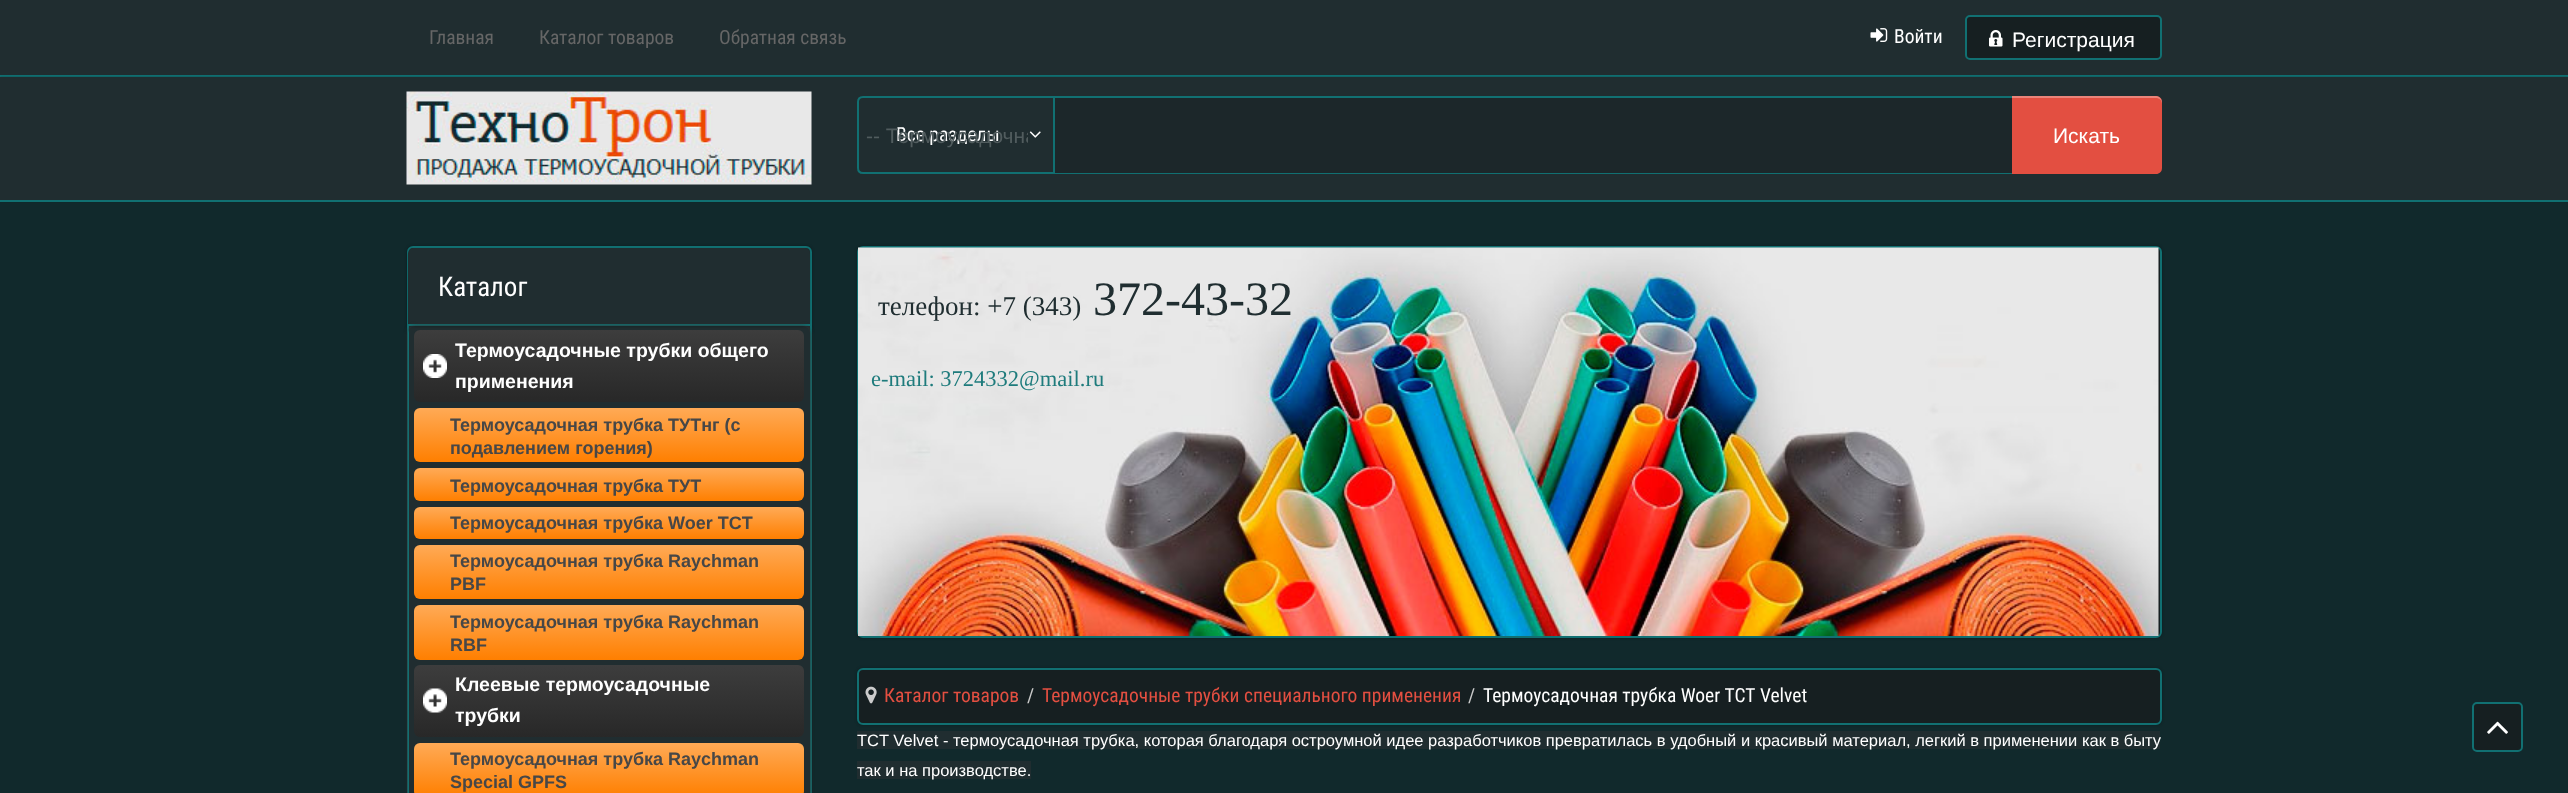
<svg xmlns="http://www.w3.org/2000/svg" width="2568" height="793" viewBox="0 0 2568 793">
  <defs>
    <clipPath id="clip1"><path d="M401 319H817V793H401ZM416 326H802C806.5 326 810 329.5 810 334V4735C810 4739.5 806.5 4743 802 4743H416C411.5 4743 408 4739.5 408 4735V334C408 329.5 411.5 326 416 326Z" clip-rule="evenodd"/></clipPath>
    <linearGradient id="g1" gradientUnits="userSpaceOnUse" x1="609" y1="330" x2="609" y2="402"><stop offset="0" stop-color="#3d3d3d"/><stop offset="1" stop-color="#282828"/></linearGradient>
    <linearGradient id="g2" gradientUnits="userSpaceOnUse" x1="609" y1="408" x2="609" y2="462"><stop offset="0" stop-color="#ffaa56"/><stop offset="1" stop-color="#ff7f00"/></linearGradient>
    <linearGradient id="g3" gradientUnits="userSpaceOnUse" x1="609" y1="468" x2="609" y2="501"><stop offset="0" stop-color="#ffaa56"/><stop offset="1" stop-color="#ff7f00"/></linearGradient>
    <linearGradient id="g4" gradientUnits="userSpaceOnUse" x1="609" y1="507" x2="609" y2="539"><stop offset="0" stop-color="#ffaa56"/><stop offset="1" stop-color="#ff7f00"/></linearGradient>
    <linearGradient id="g5" gradientUnits="userSpaceOnUse" x1="609" y1="545" x2="609" y2="599"><stop offset="0" stop-color="#ffaa56"/><stop offset="1" stop-color="#ff7f00"/></linearGradient>
    <linearGradient id="g6" gradientUnits="userSpaceOnUse" x1="609" y1="605" x2="609" y2="660"><stop offset="0" stop-color="#ffaa56"/><stop offset="1" stop-color="#ff7f00"/></linearGradient>
    <linearGradient id="g7" gradientUnits="userSpaceOnUse" x1="609" y1="665" x2="609" y2="737"><stop offset="0" stop-color="#3d3d3d"/><stop offset="1" stop-color="#282828"/></linearGradient>
    <linearGradient id="g8" gradientUnits="userSpaceOnUse" x1="609" y1="743" x2="609" y2="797"><stop offset="0" stop-color="#ffaa56"/><stop offset="1" stop-color="#ff7f00"/></linearGradient>
    <clipPath id="clip2"><path d="M866 122h162v27H866z"/></clipPath>
  </defs>
  <rect width="100%" height="100%" fill="#11292c"/>
  <path d="M0 0h2568v75H0z" fill="#202d30"/>
  <path d="M0 75h2568v2H0z" fill="#117072"/>
  <image x="1870" y="28" width="18" height="14" href="img/1.png"/>
  <rect x="1966" y="16" width="195" height="43" rx="4" fill="#161f21" stroke="#117072" stroke-width="2"/>
  <image x="1989" y="30" width="14" height="17" href="img/2.png"/>
  <path d="M0 77h2568v124H0z" fill="#0000004d" filter="blur(1px)"/>
  <path d="M0 77h2568v123H0z" fill="#202d30"/>
  <path d="M0 200h2568v2H0z" fill="#117072"/>
  <image x="406" y="91" width="406" height="94" href="img/3.png"/>
  <path d="M863 97H1054V173H863C860 173 858 171 858 168V102C858 99 860 97 863 97Z" fill="none" stroke="#117072" stroke-width="2"/>
  <image x="1029" y="131" width="12" height="7" href="img/4.png"/>
  <path d="M1055 98h957v75H1055z" fill="#1c272a"/>
  <path d="M1055 96h957v2H1055z" fill="#117072"/>
  <path d="M1055 173h957v1H1055z" fill="#117072"/>
  <path d="M2012 96H2156C2159.5 96 2162 98.5 2162 102V168C2162 171.5 2159.5 174 2156 174H2012Z" fill="#e34f41"/>
  <path d="M2012 98H2156C2159 98 2162 100 2162 104V102C2162 99 2159 96 2156 96H2012Z" fill="#ffffff4d"/>
  <rect x="407" y="246" width="405" height="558" rx="6" fill="#0000004d" filter="blur(1.5px)"/>
  <rect x="408" y="247" width="403" height="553" rx="5" fill="#202d30" stroke="#117072" stroke-width="2"/>
  <rect x="408" y="249" width="402" height="78" rx="6" fill="#00000033" filter="blur(1px)"/>
  <path d="M414 248H804C807.5 248 810 250.5 810 254V326H408V254C408 250.5 410.5 248 414 248Z" fill="#202d30"/>
  <path d="M408 324h402v2H408z" fill="#117072"/>
  <g clip-path="url(#clip1)">
    <rect x="408" y="326" width="402" height="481" rx="8" fill="#333" filter="blur(2px)"/>
  </g>
  <rect x="414" y="330" width="390" height="72" rx="6" fill="url(#g1)"/>
  <image x="423" y="354" width="24" height="24" href="img/5.png"/>
  <rect x="414" y="408" width="390" height="54" rx="6" fill="url(#g2)"/>
  <rect x="414" y="468" width="390" height="33" rx="6" fill="url(#g3)"/>
  <rect x="414" y="507" width="390" height="32" rx="6" fill="url(#g4)"/>
  <rect x="414" y="545" width="390" height="54" rx="6" fill="url(#g5)"/>
  <rect x="414" y="605" width="390" height="55" rx="6" fill="url(#g6)"/>
  <rect x="414" y="665" width="390" height="72" rx="6" fill="url(#g7)"/>
  <image x="423" y="688" width="24" height="25" href="img/6.png"/>
  <rect x="414" y="743" width="390" height="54" rx="6" fill="url(#g8)"/>
  <rect x="857" y="246" width="1305" height="392" rx="6" fill="#0000004d" filter="blur(1.5px)"/>
  <rect x="858" y="247" width="1303" height="390" rx="5" fill="#161f21" stroke="#117072" stroke-width="2"/>
  <image x="858" y="247" width="1301" height="389" href="img/7.png"/>
  <rect x="857" y="668" width="1305" height="57" rx="6" fill="#0000004d" filter="blur(1.5px)"/>
  <rect x="858" y="669" width="1303" height="55" rx="5" fill="#161f21" stroke="#117072" stroke-width="2"/>
  <image x="865" y="686" width="12" height="18" href="img/8.png"/>
  <path d="M857 731h1303v18H857z" fill="#202d30"/>
  <path d="M857 761h174v18H857z" fill="#202d30"/>
  <rect x="2473" y="703" width="49" height="48" rx="4" fill="#161f21" stroke="#117072" stroke-width="2"/>
  <image x="2487" y="721" width="21" height="13" href="img/9.png"/>
  <g font-family="Roboto Condensed" font-size="19.5" fill="#666">
    <text x="429" y="44">Главная</text>
    <text x="539" y="44">Каталог товаров</text>
    <text x="719" y="44">Обратная связь</text>
  </g>
  <text x="1894" y="43" font-family="Roboto Condensed" font-size="19.5" fill="#fff">Войти</text>
  <text x="2012" y="47" font-family="Liberation Sans" font-size="21" fill="#fff">Регистрация</text>
  <text x="896" y="141" font-family="Roboto Condensed" font-size="19.5" fill="#fff">Все разделы</text>
  <g clip-path="url(#clip2)">
    <text x="866" y="143" font-family="Liberation Sans" font-size="21" fill="#515c5e">-- Термоусадочна</text>
  </g>
  <text x="2053" y="143" font-family="Liberation Sans" font-size="21" fill="#fff">Искать</text>
  <text x="438" y="296" font-family="Roboto Condensed" font-size="27" fill="#fff">Каталог</text>
  <g font-family="Arimo" font-size="19.5" font-weight="bold" fill="#fff">
    <text x="455" y="357">Термоусадочные трубки общего</text>
    <text x="455" y="388">применения</text>
  </g>
  <g font-family="Arimo" font-size="18" font-weight="bold" fill="#474747">
    <text x="450" y="431">Термоусадочная трубка ТУТнг (с</text>
    <text x="450" y="454">подавлением горения)</text>
    <text x="450" y="492">Термоусадочная трубка ТУТ</text>
    <text x="450" y="529">Термоусадочная трубка Woer TCT</text>
    <text x="450" y="567">Термоусадочная трубка Raychman</text>
    <text x="450" y="590">PBF</text>
    <text x="450" y="628">Термоусадочная трубка Raychman</text>
    <text x="450" y="651">RBF</text>
  </g>
  <g font-family="Arimo" font-size="19.5" font-weight="bold" fill="#fff">
    <text x="455" y="691">Клеевые термоусадочные</text>
    <text x="455" y="722">трубки</text>
  </g>
  <g font-family="Arimo" font-size="18" font-weight="bold" fill="#474747">
    <text x="450" y="765">Термоусадочная трубка Raychman</text>
    <text x="450" y="788">Special GPFS</text>
  </g>
  <text x="878" y="315" font-family="Liberation Serif" font-size="27" fill="#202e31">телефон: +7 (343)</text>
  <text x="1093" y="315" font-family="Liberation Serif" font-size="48" fill="#202e31">372-43-32</text>
  <text x="871" y="386" font-family="Liberation Serif" font-size="22.5" fill="#1e7b7c">e-mail: 3724332@mail.ru</text>
  <text x="884" y="702" font-family="Roboto Condensed" font-size="19.5" fill="#e34f41">Каталог товаров</text>
  <text x="1027" y="702" font-family="Roboto Condensed" font-size="19.5" fill="#ccc">/</text>
  <text x="1042" y="702" font-family="Roboto Condensed" font-size="19.5" fill="#e34f41">Термоусадочные трубки специального применения</text>
  <text x="1468" y="702" font-family="Roboto Condensed" font-size="19.5" fill="#ccc">/</text>
  <text x="1483" y="702" font-family="Roboto Condensed" font-size="19.5" fill="#fff">Термоусадочная трубка Woer TCT Velvet</text>
  <g font-family="Liberation Sans" font-size="16.5" fill="#fff">
    <text x="857" y="746">TCT Velvet - термоусадочная трубка, которая благодаря остроумной идее разработчиков превратилась в удобный и красивый материал, легкий в применении как в быту</text>
    <text x="857" y="776">так и на производстве.</text>
  </g>
</svg>
